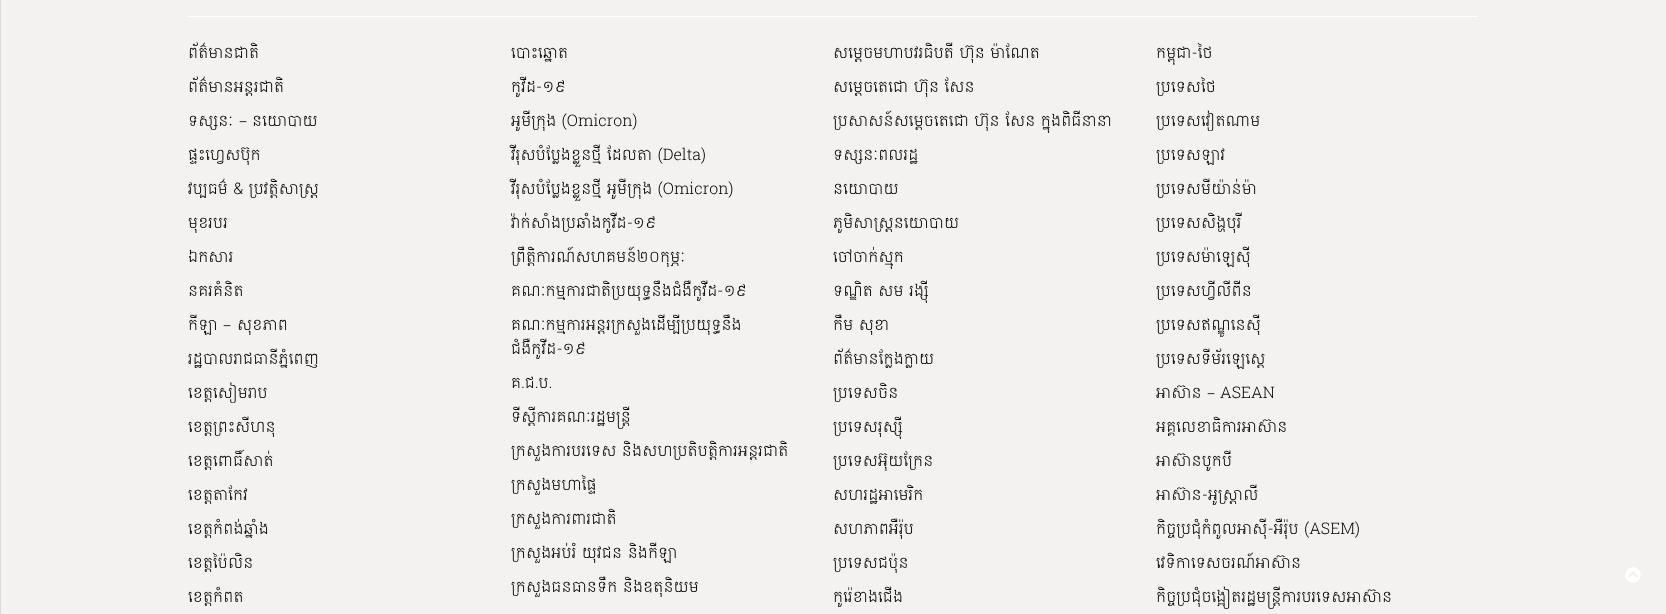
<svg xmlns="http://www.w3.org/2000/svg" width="1666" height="614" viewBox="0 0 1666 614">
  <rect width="100%" height="100%" fill="#f3f2f1"/>
  <path d="M-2 0h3v614H-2z" fill="#0000001a" filter="blur(0.5px)"/>
  <path d="M188 16h1290v1H188z" fill="#fff"/>
  <image x="1625" y="567" width="16" height="16" href="img/1.png"/>
  <g font-family="Hanuman" font-size="16" font-weight="300" fill="#000">
    <text x="188" y="58">ព័ត៌មានជាតិ</text>
    <text x="188" y="92">ព័ត៌មានអន្តរជាតិ</text>
    <text x="188" y="126">ទស្សនៈ</text>
  </g>
  <text x="239" y="126" font-family="Noto Sans" font-size="16" font-weight="300" fill="#000">–</text>
  <g font-family="Hanuman" font-size="16" font-weight="300" fill="#000">
    <text x="252" y="126">នយោបាយ</text>
    <text x="188" y="160">ផ្ទះហ្វេសប៊ុក</text>
    <text x="188" y="194">វប្បធម៌ &amp; ប្រវត្តិសាស្រ្ដ</text>
    <text x="188" y="228">មុខរបរ</text>
    <text x="188" y="262">ឯកសារ</text>
    <text x="188" y="296">នគរគំនិត</text>
    <text x="188" y="330">កីឡា</text>
  </g>
  <text x="223" y="330" font-family="Noto Sans" font-size="16" font-weight="300" fill="#000">–</text>
  <g font-family="Hanuman" font-size="16" font-weight="300" fill="#000">
    <text x="237" y="330">សុខភាព</text>
    <text x="188" y="364">រដ្ឋបាលរាជធានីភ្នំពេញ</text>
    <text x="188" y="398">ខេត្តសៀមរាប</text>
    <text x="188" y="432">ខេត្តព្រះសីហនុ</text>
    <text x="188" y="466">ខេត្តពោធិ៍សាត់</text>
    <text x="188" y="500">ខេត្តតាកែវ</text>
    <text x="188" y="534">ខេត្តកំពង់ឆ្នាំង</text>
    <text x="188" y="568">ខេត្តប៉ៃលិន</text>
    <text x="188" y="602">ខេត្តកំពត</text>
    <text x="511" y="58">បោះឆ្នោត</text>
    <text x="511" y="92">កូវីដ-១៩</text>
    <text x="511" y="126">អូមីក្រុង (Omicron)</text>
    <text x="511" y="160">វីរុសបំប្លែងខ្លួនថ្មី ដែលតា (Delta)</text>
    <text x="511" y="194">វីរុសបំប្លែងខ្លួនថ្មី អូមីក្រុង (Omicron)</text>
    <text x="511" y="228">វ៉ាក់សាំងប្រឆាំងកូវីដ-១៩</text>
    <text x="511" y="262">ព្រឹត្តិការណ៍សហគមន៍២០កុម្ភៈ</text>
    <text x="511" y="296">គណៈកម្មការជាតិប្រយុទ្ធនឹងជំងឺកូវីដ-១៩</text>
    <text x="511" y="330">គណៈកម្មការអន្តរក្រសួងដើម្បីប្រយុទ្ធនឹង</text>
    <text x="511" y="354">ជំងឺកូវីដ-១៩</text>
    <text x="511" y="388">គ.ជ.ប.</text>
    <text x="511" y="422">ទីស្ដីការគណៈរដ្ឋមន្ត្រី</text>
    <text x="511" y="456">ក្រសួងការបរទេស និងសហប្រតិបត្តិការអន្តរជាតិ</text>
    <text x="511" y="490">ក្រសួងមហាផ្ទៃ</text>
    <text x="511" y="524">ក្រសួងការពារជាតិ</text>
    <text x="511" y="558">ក្រសួងអប់រំ យុវជន និងកីឡា</text>
    <text x="511" y="592">ក្រសួងធនធានទឹក និងឧតុនិយម</text>
    <text x="833" y="58">សម្ដេចមហាបវរធិបតី ហ៊ុន ម៉ាណែត</text>
    <text x="833" y="92">សម្ដេចតេជោ ហ៊ុន សែន</text>
    <text x="833" y="126">ប្រសាសន៍សម្ដេចតេជោ ហ៊ុន សែន ក្នុងពិធីនានា</text>
    <text x="833" y="160">ទស្សនៈពលរដ្ឋ</text>
    <text x="833" y="194">នយោបាយ</text>
    <text x="833" y="228">ភូមិសាស្ត្រនយោបាយ</text>
    <text x="833" y="262">ចៅចាក់ស្មុក</text>
    <text x="833" y="296">ទណ្ឌិត សម រង្ស៊ី</text>
    <text x="833" y="330">កឹម សុខា</text>
    <text x="833" y="364">ព័ត៌មានក្លែងក្លាយ</text>
    <text x="833" y="398">ប្រទេសចិន</text>
    <text x="833" y="432">ប្រទេសរុស្ស៊ី</text>
    <text x="833" y="466">ប្រទេសអ៊ុយក្រែន</text>
    <text x="833" y="500">សហរដ្ឋអាមេរិក</text>
    <text x="833" y="534">សហភាពអឺរ៉ុប</text>
    <text x="833" y="568">ប្រទេសជប៉ុន</text>
    <text x="833" y="602">កូរ៉េខាងជើង</text>
    <text x="1156" y="58">កម្ពុជា-ថៃ</text>
    <text x="1156" y="92">ប្រទេសថៃ</text>
    <text x="1156" y="126">ប្រទេសវៀតណាម</text>
    <text x="1156" y="160">ប្រទេសឡាវ</text>
    <text x="1156" y="194">ប្រទេសមីយ៉ាន់ម៉ា</text>
    <text x="1156" y="228">ប្រទេសសិង្ហបុរី</text>
    <text x="1156" y="262">ប្រទេសម៉ាឡេស៊ី</text>
    <text x="1156" y="296">ប្រទេសហ្វីលីពីន</text>
    <text x="1156" y="330">ប្រទេសឥណ្ឌូនេស៊ី</text>
    <text x="1156" y="364">ប្រទេសទីម័រឡេស្តេ</text>
    <text x="1156" y="398">អាស៊ាន</text>
  </g>
  <text x="1207" y="398" font-family="Noto Sans" font-size="16" font-weight="300" fill="#000">–</text>
  <g font-family="Hanuman" font-size="16" font-weight="300" fill="#000">
    <text x="1220" y="398">ASEAN</text>
    <text x="1156" y="432">អគ្គលេខាធិការអាស៊ាន</text>
    <text x="1156" y="466">អាស៊ានបូកបី</text>
    <text x="1156" y="500">អាស៊ាន-អូស្រ្តាលី</text>
    <text x="1156" y="534">កិច្ចប្រជុំកំពូលអាស៊ី-អឺរ៉ុប (ASEM)</text>
    <text x="1156" y="568">វេទិកាទេសចរណ៍អាស៊ាន</text>
    <text x="1156" y="602">កិច្ចប្រជុំចង្អៀតរដ្ឋមន្ត្រីការបរទេសអាស៊ាន</text>
  </g>
</svg>
